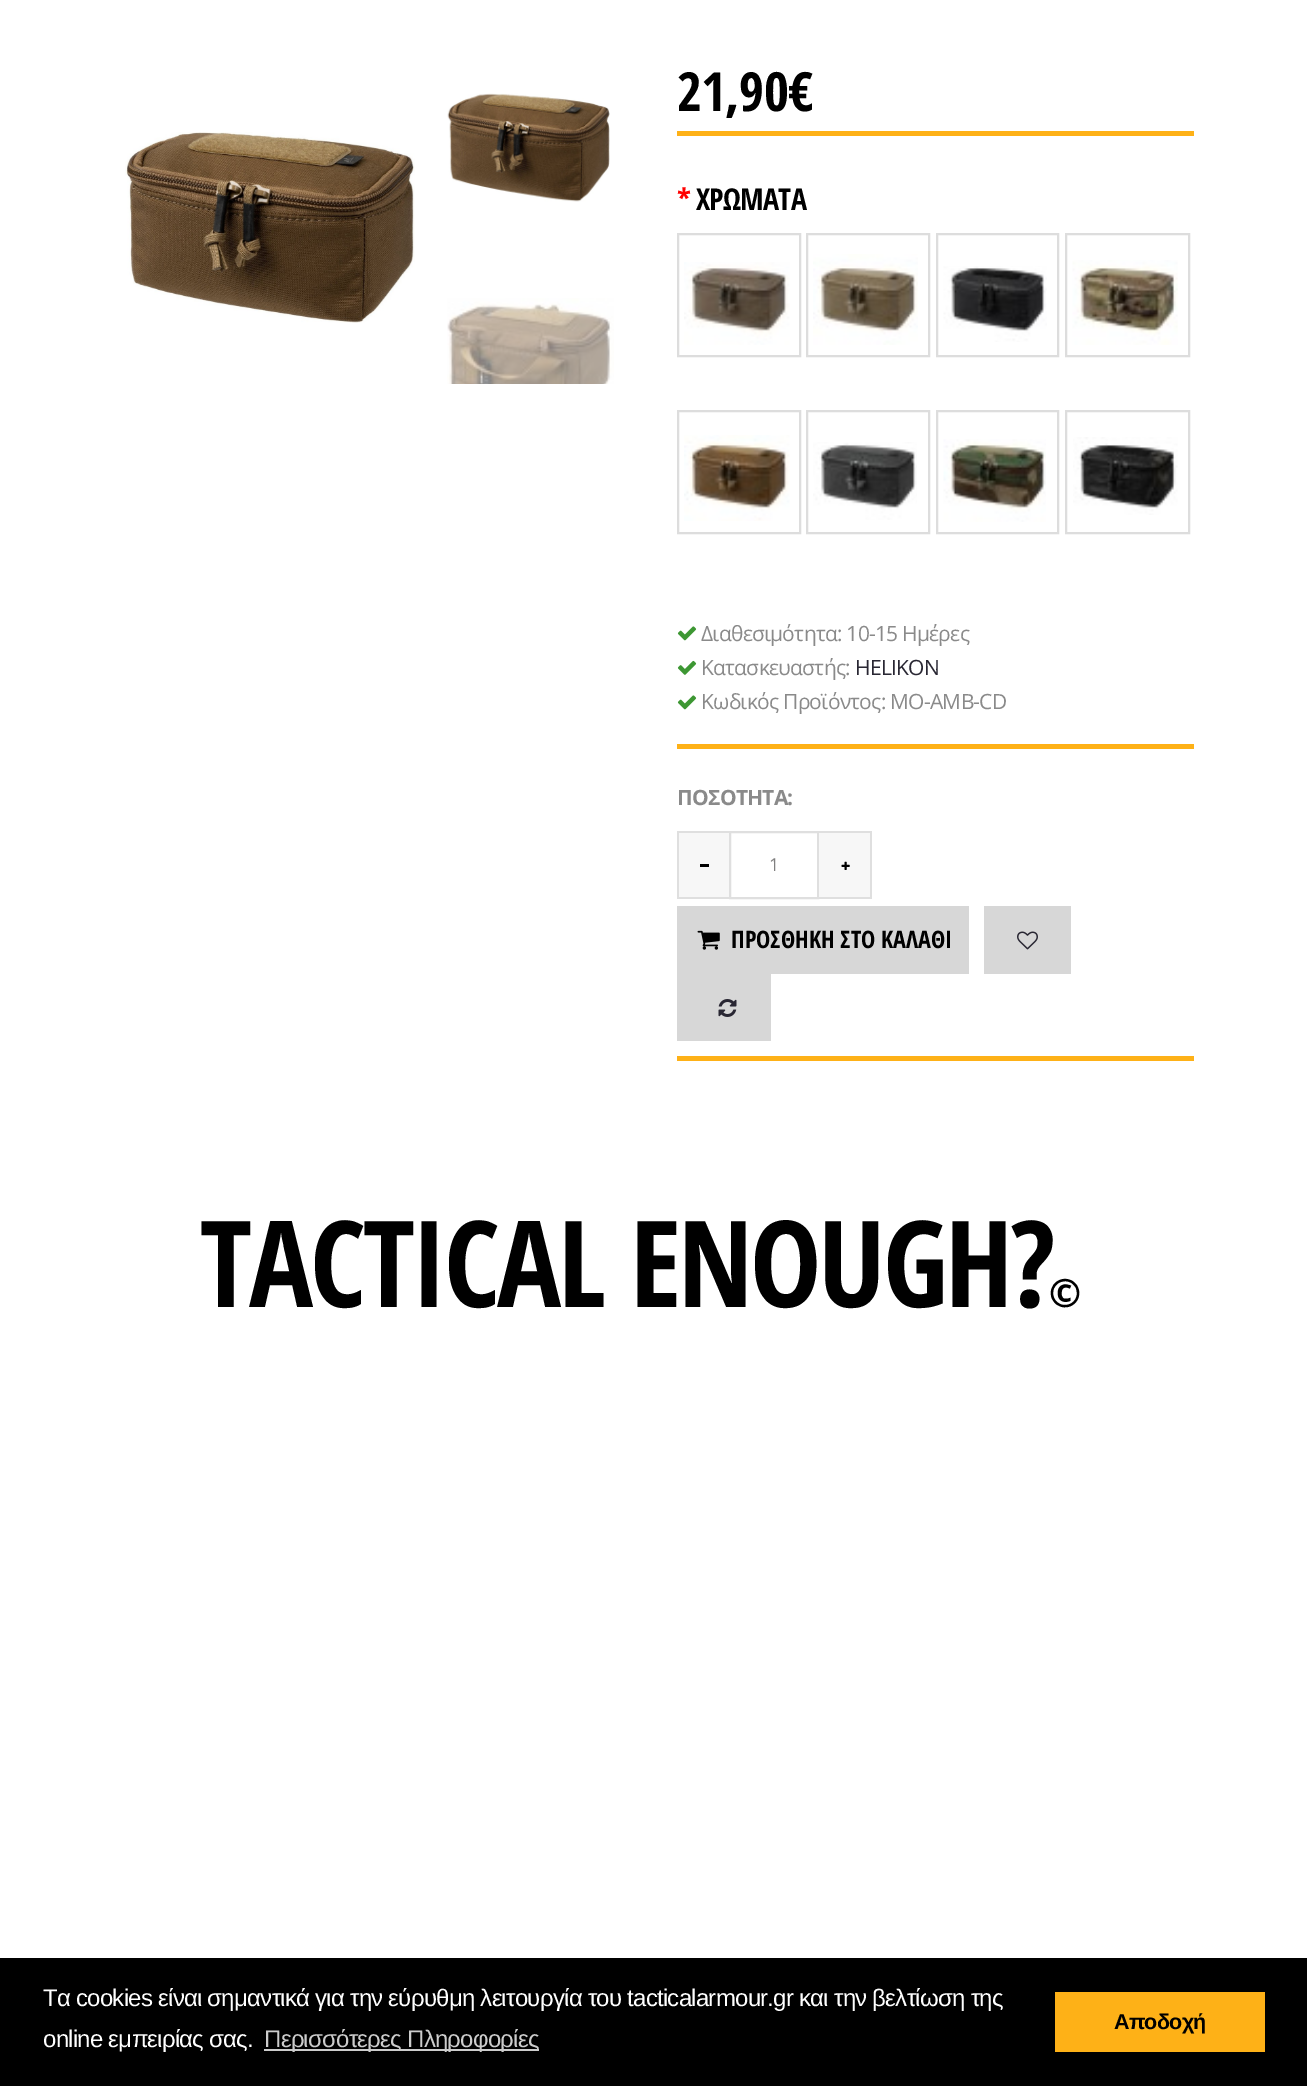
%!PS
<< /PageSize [1307 2086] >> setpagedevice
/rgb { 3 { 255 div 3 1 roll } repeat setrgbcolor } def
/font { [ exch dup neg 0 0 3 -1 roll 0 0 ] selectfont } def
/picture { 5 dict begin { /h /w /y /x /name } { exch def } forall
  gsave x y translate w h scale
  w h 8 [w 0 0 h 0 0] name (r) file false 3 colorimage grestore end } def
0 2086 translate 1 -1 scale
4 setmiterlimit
255 255 255 rgb
0 0 1307 2086 rectfill
(img/1.rgb) 125 132 290 191 picture
(img/2.rgb) 447 93 163 109 picture
(img/3.rgb) 447 298 167 86 picture
254 177 23 rgb
677 131 517 5 rectfill
221 221 221 rgb
2 setlinewidth
678 234 122 122 rectstroke
(img/4.rgb) 684 262 106 83 picture
807 234 122 122 rectstroke
(img/5.rgb) 813 254 105 91 picture
937 234 121 122 rectstroke
(img/6.rgb) 943 266 104 76 picture
1066 234 123 122 rectstroke
(img/7.rgb) 1072 260 106 85 picture
678 411 122 122 rectstroke
(img/8.rgb) 684 435 106 86 picture
807 411 122 122 rectstroke
(img/9.rgb) 813 442 104 78 picture
937 411 121 122 rectstroke
(img/10.rgb) 943 439 103 83 picture
1066 411 123 122 rectstroke
(img/11.rgb) 1073 437 105 78 picture
(img/12.rgb) 677 626 20 15 picture
(img/13.rgb) 677 660 20 15 picture
(img/12.rgb) 677 695 20 15 picture
[
  [677 744 517 5 254 177 23]
  [677 1056 517 5 254 177 23]
  [679 833 50 64 247 247 247]
  [677 831 52 2 223 223 223]
  [677 897 52 2 223 223 223]
  [677 831 2 68 223 223 223]
  [700 864 9 3 0 0 0]
] { aload pop rgb rectfill } forall
223 223 223 rgb
730 832 88 66 rectstroke
[
  [819 833 51 64 247 247 247]
  [819 831 53 2 223 223 223]
  [870 831 2 68 223 223 223]
  [819 897 53 2 223 223 223]
] { aload pop rgb rectfill } forall
(img/14.rgb) 841 861 9 9 picture
215 215 215 rgb
677 906 292 68 rectfill
(img/15.rgb) 697 930 23 20 picture
984 906 87 68 rectfill
(img/16.rgb) 1017 931 21 19 picture
677 974 94 67 rectfill
(img/17.rgb) 718 999 19 18 picture
[
  [0 1958 1307 128 0 0 0]
  [264 2049 275 2 204 204 204]
  [1055 1992 210 60 254 177 23]
] { aload pop rgb rectfill } forall
/OpenSansCondensed-Bold 54 font
0 0 0 rgb
677 111 moveto -0.75 0 (21,90€) ashow
/OpenSansCondensed-Bold 30 font
255 0 0 rgb
677 210 moveto -0.75 0 (*) ashow
0 0 0 rgb
696 210 moveto -0.75 0 (ΧΡΩΜΑΤΑ) ashow
/OpenSans-Regular 21 font
138 138 138 rgb
701 641 moveto -0.75 0 (Διαθεσιμότητα: 10-15 Ημέρες) ashow
701 675 moveto -0.75 0 (Κατασκευαστής:) ashow
41 39 51 rgb
855 675 moveto -0.75 0 (HELIKON) ashow
138 138 138 rgb
701 709 moveto -0.75 0 (Κωδικός Προϊόντος: MO-AMB-CD) ashow
/OpenSans-Bold 21 font
677 805 moveto -0.75 0 (ΠΟΣΟΤΗΤΑ:) ashow
/OpenSans-Regular 18 font
128 127 127 rgb
769 871 moveto (1) show
/OpenSansCondensed-Bold 24 font
0 0 0 rgb
731 948 moveto (ΠΡΟΣΘΗΚΗ ΣΤΟ ΚΑΛΑΘΙ) show
/OpenSansCondensed-Bold 120 font
200 1307 moveto -3 0 (TACTICAL ENOUGH?) ashow
/OpenSansCondensed-Bold 39 font
1049 1307 moveto -3 0 (©) ashow
/LiberationSans-Regular 24 font
255 255 255 rgb
43 2006 moveto -0.75 0 (Τα cookies είναι σημαντικά για την εύρυθμη λειτουργία του tacticalarmour.gr και την βελτίωση της) ashow
43 2047 moveto -0.75 0 (online εμπειρίας σας.) ashow
204 204 204 rgb
264 2047 moveto -0.75 0 (Περισσότερες Πληροφορίες) ashow
/LiberationSans-Bold 21.5 font
0 0 0 rgb
1114 2029 moveto -0.75 0 (Αποδοχή) ashow
showpage
